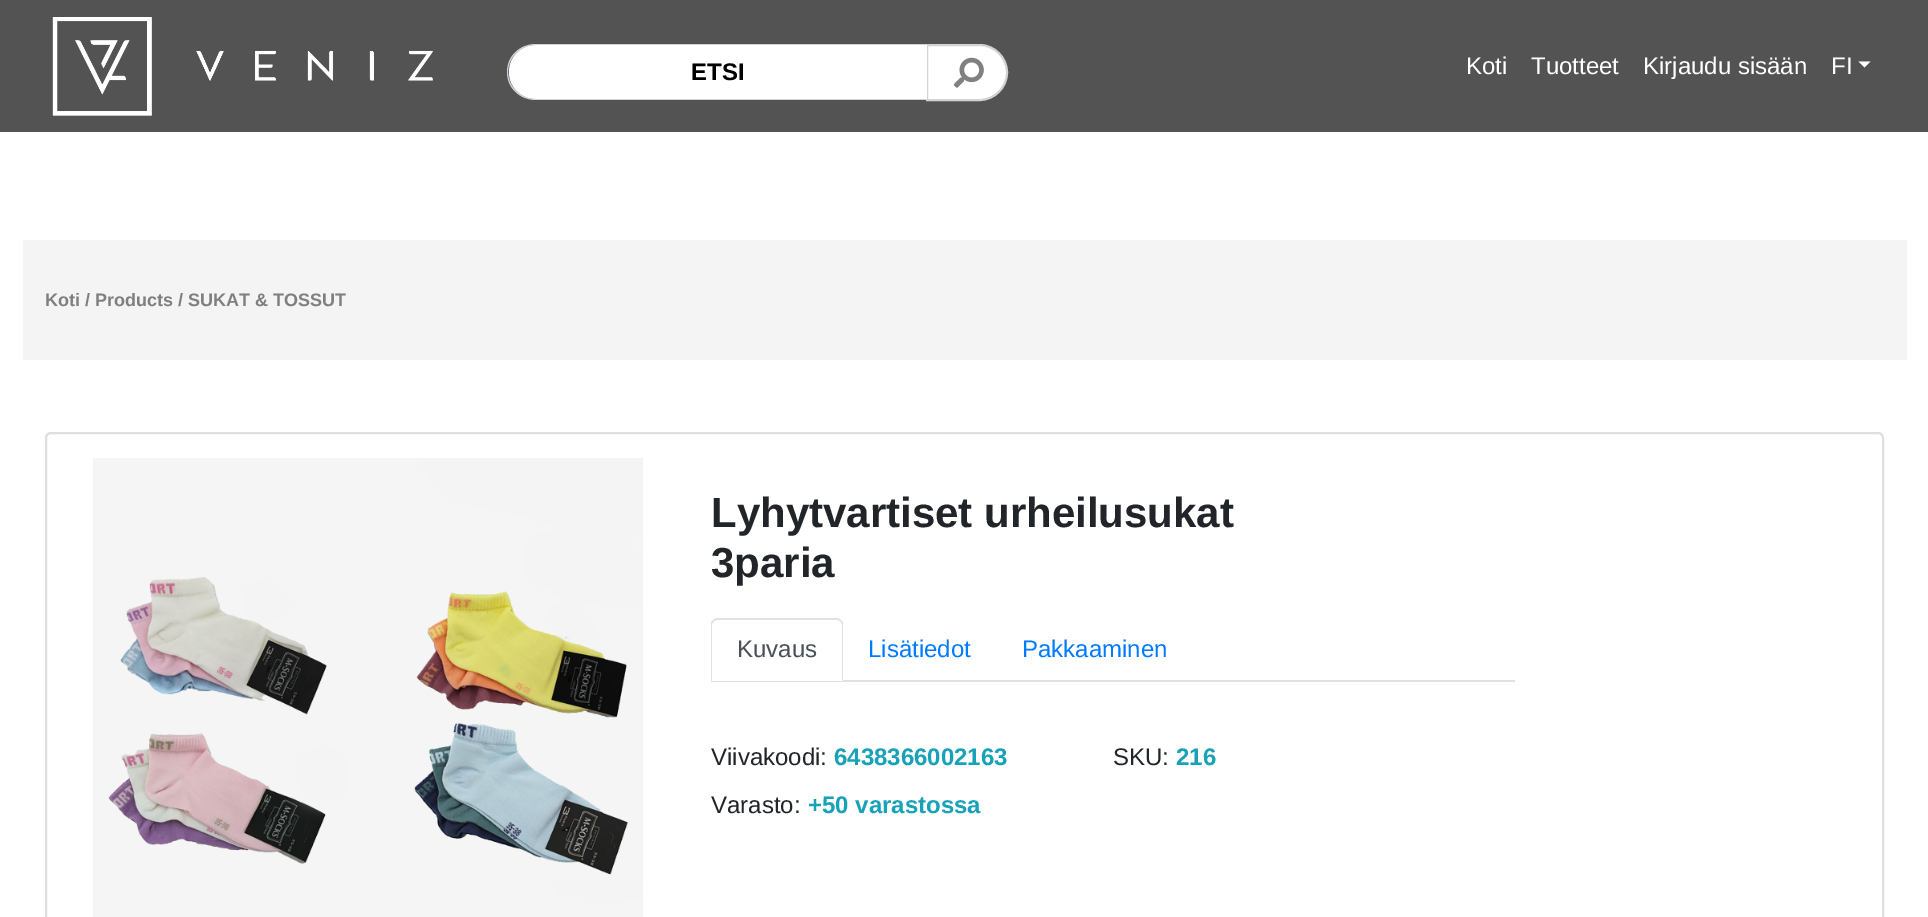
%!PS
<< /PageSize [1928 917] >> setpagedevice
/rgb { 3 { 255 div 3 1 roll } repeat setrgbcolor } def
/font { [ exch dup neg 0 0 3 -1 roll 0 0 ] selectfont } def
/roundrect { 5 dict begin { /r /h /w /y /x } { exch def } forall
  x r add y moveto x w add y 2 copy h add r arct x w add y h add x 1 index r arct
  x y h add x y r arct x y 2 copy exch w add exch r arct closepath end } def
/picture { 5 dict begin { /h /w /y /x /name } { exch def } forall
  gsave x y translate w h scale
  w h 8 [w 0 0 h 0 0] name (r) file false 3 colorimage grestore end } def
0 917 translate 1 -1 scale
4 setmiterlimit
255 255 255 rgb
0 0 1928 917 rectfill
83 83 83 rgb
0 0 1928 132 rectfill
(img/1.rgb) 52 17 381 99 picture
255 255 255 rgb
927 45 moveto 979.5 45 lineto 994.5 45 1007 57.5 1007 72.5 curveto 1007 87.5 994.5 100 979.5 100 curveto 927 100 lineto closepath gsave fill grestore
211 211 211 rgb
2 setlinewidth
stroke
255 255 255 rgb
536 45 moveto 927 45 lineto 927 99 lineto 536 99 lineto 521 99 509 87 509 72 curveto 509 57 521 45 536 45 curveto closepath fill
206 212 218 rgb
536 44 moveto 927 44 lineto 927 100 lineto 536 100 lineto 520 100 507 88 507 72 curveto 507 56 520 44 536 44 curveto closepath 536 45 moveto 927 45 lineto 927 99 lineto 536 99 lineto 521 99 508 87 508 72 curveto 508 57 521 45 536 45 curveto closepath eofill
(img/2.rgb) 953 57 31 31 picture
255 255 255 rgb
1858.5 61.5 moveto 1870.5 61.5 lineto 1864.5 67.5 lineto closepath fill
244 244 244 rgb
23 240 1884 120 rectfill
223 223 223 rgb
46 433 1837 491 5 roundrect stroke
(img/3.rgb) 93 458 550 459 picture
222 226 230 rgb
711 680 804 2 rectfill
255 255 255 rgb
717 618 moveto 837 618 lineto 840.5 618 843 620.5 843 624 curveto 843 681 lineto 711 681 lineto 711 624 lineto 711 620.5 713.5 618 717 618 curveto closepath fill
222 226 230 rgb
717 618 moveto 716 618 714 619 713 620 curveto 714 621 lineto 717 620 lineto 757 620 lineto 837 620 lineto 840 621 lineto 841 620 lineto 840 619 838 618 837 618 curveto closepath fill
843 681 moveto 843 624 lineto 843 622 842 621 841 620 curveto 840 621 lineto 842 624 lineto 842 680 lineto closepath fill
255 255 255 rgb
843 681 moveto 842 680 lineto 712 680 lineto 711 681 lineto closepath fill
222 226 230 rgb
711 681 moveto 712 680 lineto 712 624 lineto 714 621 lineto 713 620 lineto 712 621 711 622 711 624 curveto closepath fill
/LiberationSans-Bold 24 font
0 0 0 rgb
691 80 moveto (ETSI) show
/LiberationSans-Regular 24 font
255 255 255 rgb
[
  [(Koti) 1466 74]
  [(Tuotteet) 1531 74]
  [(Kirjaudu sisään) 1643 74]
  [(FI) 1831 74]
] { aload pop moveto show } forall
/LiberationSans-Bold 18 font
127 127 127 rgb
45 306 moveto (Koti / Products / SUKAT & TOSSUT) show
/LiberationSans-Bold 42 font
33 37 41 rgb
711 527 moveto (Lyhytvartiset urheilusukat) show
711 577 moveto (3paria) show
/LiberationSans-Regular 24 font
73 80 87 rgb
737 657 moveto (Kuvaus) show
0 123 255 rgb
868 657 moveto (Lisätiedot) show
1022 657 moveto (Pakkaaminen) show
33 37 41 rgb
711 765 moveto (Viivakoodi:) show
/LiberationSans-Bold 24 font
23 162 184 rgb
834 765 moveto (6438366002163) show
/LiberationSans-Regular 24 font
33 37 41 rgb
1113 765 moveto (SKU:) show
/LiberationSans-Bold 24 font
23 162 184 rgb
1176 765 moveto (216) show
/LiberationSans-Regular 24 font
33 37 41 rgb
711 813 moveto (Varasto:) show
/LiberationSans-Bold 24 font
23 162 184 rgb
808 813 moveto (+50 varastossa) show
showpage
